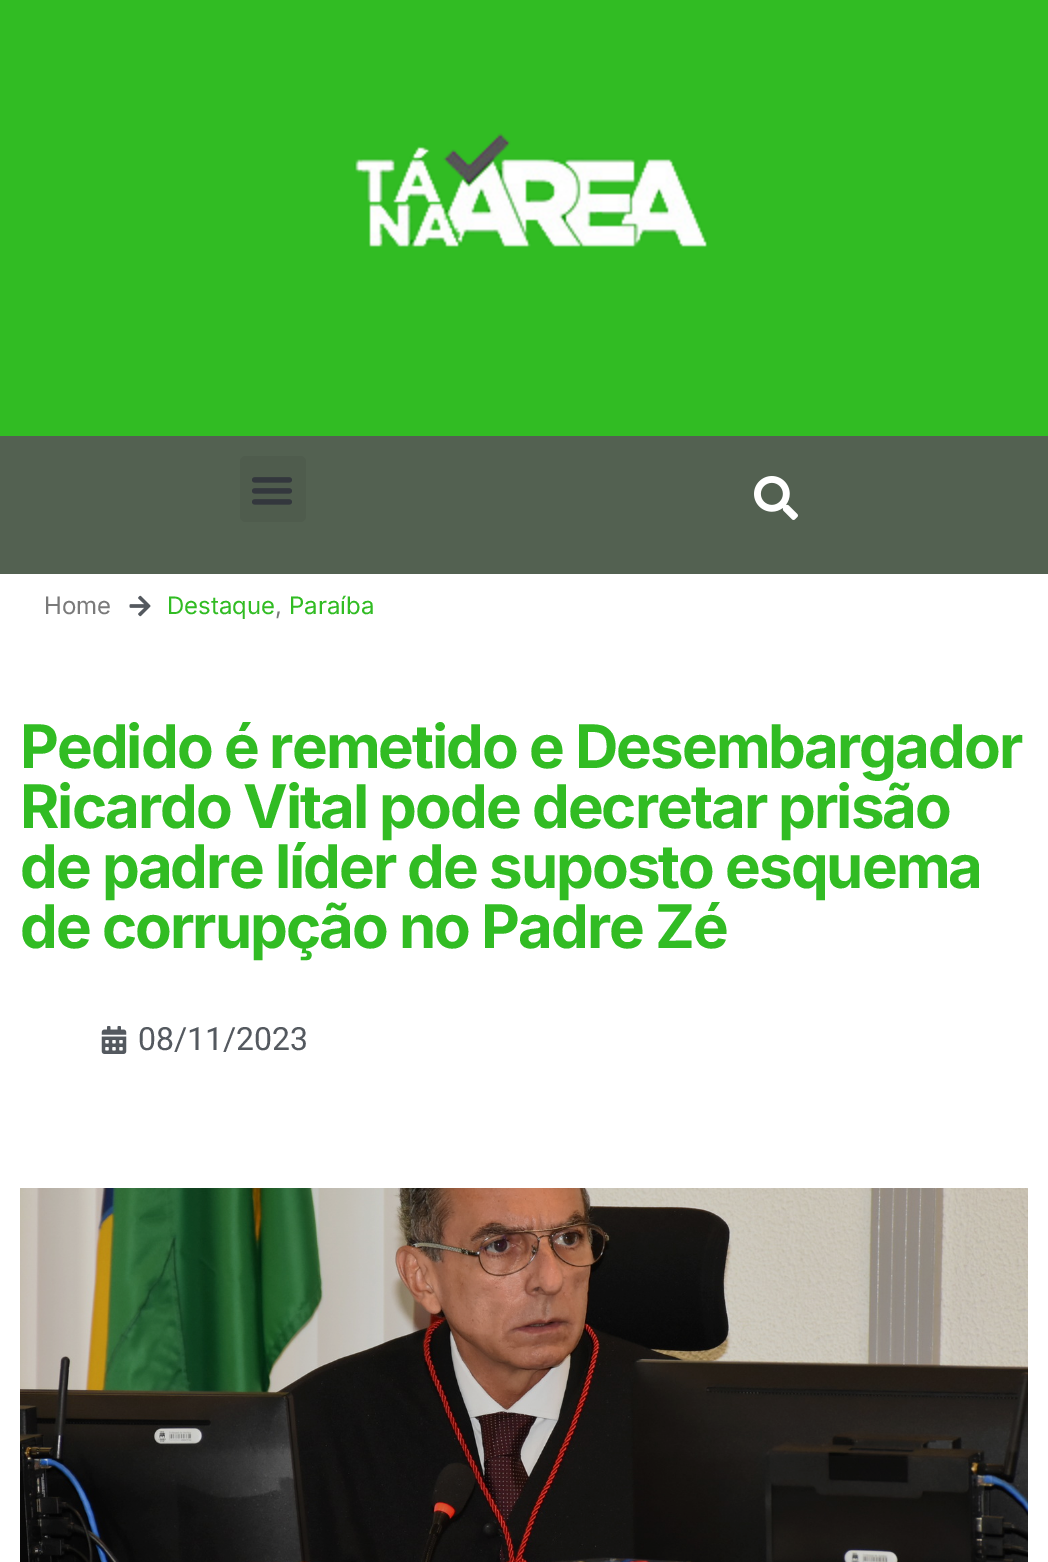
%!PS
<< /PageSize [1048 1562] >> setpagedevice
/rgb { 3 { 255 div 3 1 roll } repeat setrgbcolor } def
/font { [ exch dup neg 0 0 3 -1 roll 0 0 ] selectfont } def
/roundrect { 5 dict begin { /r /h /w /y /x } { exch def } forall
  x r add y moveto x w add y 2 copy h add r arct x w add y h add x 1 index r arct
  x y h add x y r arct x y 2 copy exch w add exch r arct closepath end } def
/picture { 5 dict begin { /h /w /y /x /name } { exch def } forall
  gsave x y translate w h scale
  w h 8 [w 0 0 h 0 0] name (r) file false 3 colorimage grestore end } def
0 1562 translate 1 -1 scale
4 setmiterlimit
255 255 255 rgb
0 0 1048 1562 rectfill
49 188 35 rgb
0 0 1048 436 rectfill
(img/1.rgb) 354 133 354 114 picture
83 97 81 rgb
0 436 1048 138 rectfill
79 92 77 rgb
240 456 66 66 6 roundrect fill
(img/2.rgb) 252 477 40 28 picture
(img/3.rgb) 754 476 44 44 picture
(img/4.rgb) 129 595 22 22 picture
(img/5.rgb) 101 1026 26 28 picture
(img/6.rgb) 20 1188 1008 374 picture
/Inter-Regular 24 font
122 122 122 rgb
44 614 moveto (Home) show
49 188 35 rgb
167 614 moveto (Destaque) show
122 122 122 rgb
275 614 moveto (,) show
49 188 35 rgb
289 614 moveto (Paraíba) show
/Inter-Bold 60 font
20 768 moveto -2 0 (Pedido é remetido e Desembargador) ashow
20 828 moveto -2 0 (Ricardo Vital pode decretar prisão) ashow
20 888 moveto -2 0 (de padre líder de suposto esquema) ashow
20 948 moveto -2 0 (de corrupção no Padre Zé) ashow
/Roboto-Regular 32 font
84 89 95 rgb
138 1050 moveto (08/11/2023) show
showpage
